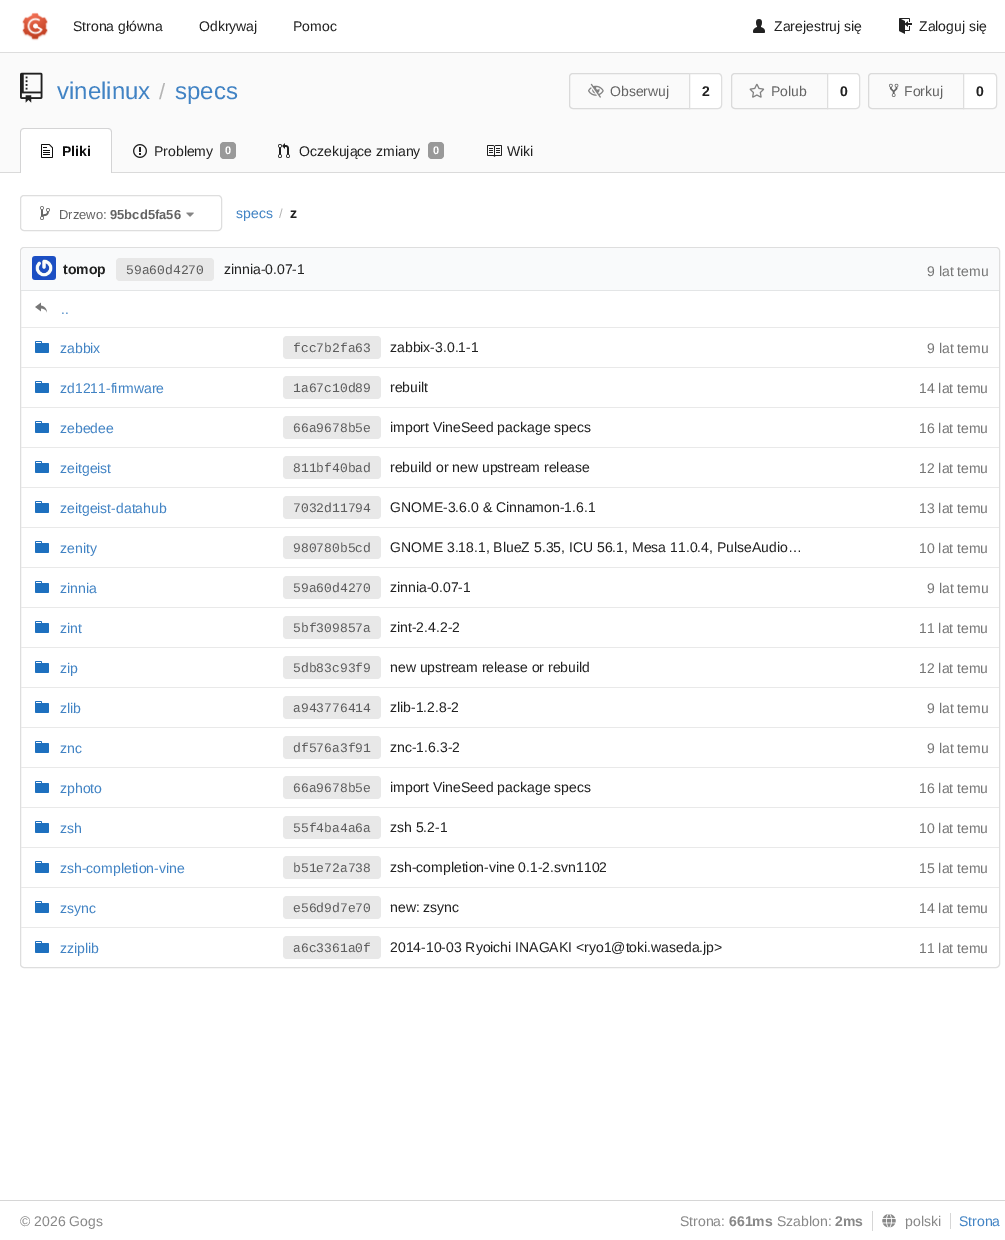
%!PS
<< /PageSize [1005 1240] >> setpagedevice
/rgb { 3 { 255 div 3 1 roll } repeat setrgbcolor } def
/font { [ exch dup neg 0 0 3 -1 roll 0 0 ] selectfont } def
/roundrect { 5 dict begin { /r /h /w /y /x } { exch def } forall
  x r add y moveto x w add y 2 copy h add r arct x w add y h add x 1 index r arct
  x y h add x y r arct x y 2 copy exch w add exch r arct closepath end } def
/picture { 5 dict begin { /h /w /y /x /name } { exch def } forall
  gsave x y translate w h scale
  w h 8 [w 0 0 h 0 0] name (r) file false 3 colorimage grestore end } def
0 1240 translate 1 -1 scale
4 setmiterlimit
255 255 255 rgb
0 0 1005 1240 rectfill
221 221 221 rgb
0 52 1005 1 rectfill
(img/1.rgb) 22 12 26 29 picture
(img/2.rgb) 753 19 12 14 picture
(img/3.rgb) 899 18 13 16 picture
250 250 250 rgb
0 53 1005 119 rectfill
(img/4.rgb) 20 72 23 31 picture
218 218 218 rgb
573 73.5 moveto 689.5 73.5 lineto 689.5 108.5 lineto 573 108.5 lineto 571 108.5 569.5 107 569.5 105 curveto 569.5 77 lineto 569.5 75 571 73.5 573 73.5 curveto closepath stroke
(img/5.rgb) 588 83 16 15 picture
255 255 255 rgb
689.5 73.5 moveto 718 73.5 lineto 720 73.5 721.5 75 721.5 77 curveto 721.5 105 lineto 721.5 107 720 108.5 718 108.5 curveto 689.5 108.5 lineto closepath gsave fill grestore
222 222 222 rgb
stroke
218 218 218 rgb
735 73.5 moveto 827.5 73.5 lineto 827.5 108.5 lineto 735 108.5 lineto 733 108.5 731.5 107 731.5 105 curveto 731.5 77 lineto 731.5 75 733 73.5 735 73.5 curveto closepath stroke
(img/6.rgb) 749 83 16 15 picture
255 255 255 rgb
827.5 73.5 moveto 856 73.5 lineto 858 73.5 859.5 75 859.5 77 curveto 859.5 105 lineto 859.5 107 858 108.5 856 108.5 curveto 827.5 108.5 lineto closepath gsave fill grestore
222 222 222 rgb
stroke
218 218 218 rgb
872 73.5 moveto 963.5 73.5 lineto 963.5 108.5 lineto 872 108.5 lineto 870 108.5 868.5 107 868.5 105 curveto 868.5 77 lineto 868.5 75 870 73.5 872 73.5 curveto closepath stroke
(img/7.rgb) 889 83 10 14 picture
255 255 255 rgb
963.5 73.5 moveto 993 73.5 lineto 995 73.5 996.5 75 996.5 77 curveto 996.5 105 lineto 996.5 107 995 108.5 993 108.5 curveto 963.5 108.5 lineto closepath gsave fill grestore
222 222 222 rgb
stroke
218 218 218 rgb
0 172 1005 1 rectfill
255 255 255 rgb
24 128 moveto 108 128 lineto 110 128 112 130 112 132 curveto 112 173 lineto 20 173 lineto 20 132 lineto 20 130 22 128 24 128 curveto closepath fill
212 212 213 rgb
24 128 moveto 108 128 lineto 110 128 112 130 112 132 curveto 112 173 lineto 20 173 lineto 20 132 lineto 20 130 22 128 24 128 curveto closepath 24 129 moveto 108 129 lineto 110 129 111 130 111 132 curveto 111 173 lineto 21 173 lineto 21 132 lineto 21 130 22 129 24 129 curveto closepath eofill
(img/8.rgb) 41 144 12 14 picture
(img/9.rgb) 133 144 14 14 picture
153 153 153 rgb
220 142 16 17 4 roundrect fill
(img/10.rgb) 278 143 12 15 picture
428 142 16 17 4 roundrect fill
(img/11.rgb) 487 145 15 12 picture
222 222 222 rgb
20.5 195.5 201 35 3.5 roundrect stroke
(img/12.rgb) 40 206 10 14 picture
(img/13.rgb) 186 212 8 5 picture
20.5 247.5 979 720 3.5 roundrect stroke
249 250 251 rgb
25 248 moveto 816 248 lineto 816 291 lineto 21 291 lineto 21 252 lineto 21 250 23 248 25 248 curveto closepath fill
227 229 230 rgb
21 290 795 1 rectfill
(img/14.rgb) 32 256 24 24 picture
232 232 232 rgb
116 258 98 23 4 roundrect fill
249 250 251 rgb
816 248 moveto 995 248 lineto 997 248 999 250 999 252 curveto 999 291 lineto 816 291 lineto closepath fill
227 229 230 rgb
816 290 183 1 rectfill
(img/15.rgb) 35 302 12 11 picture
233 233 233 rgb
21 327 978 1 rectfill
(img/16.rgb) 35 341 14 12 picture
232 232 232 rgb
283 336 98 23 4 roundrect fill
233 233 233 rgb
21 367 978 1 rectfill
(img/16.rgb) 35 381 14 12 picture
232 232 232 rgb
283 376 98 23 4 roundrect fill
233 233 233 rgb
21 407 978 1 rectfill
(img/16.rgb) 35 421 14 12 picture
232 232 232 rgb
283 416 98 23 4 roundrect fill
233 233 233 rgb
21 447 978 1 rectfill
(img/16.rgb) 35 461 14 12 picture
232 232 232 rgb
283 456 98 23 4 roundrect fill
233 233 233 rgb
21 487 978 1 rectfill
(img/16.rgb) 35 501 14 12 picture
232 232 232 rgb
283 496 98 23 4 roundrect fill
233 233 233 rgb
21 527 978 1 rectfill
(img/16.rgb) 35 541 14 12 picture
232 232 232 rgb
283 536 98 23 4 roundrect fill
233 233 233 rgb
21 567 978 1 rectfill
(img/16.rgb) 35 581 14 12 picture
232 232 232 rgb
283 576 98 23 4 roundrect fill
233 233 233 rgb
21 607 978 1 rectfill
(img/16.rgb) 35 621 14 12 picture
232 232 232 rgb
283 616 98 23 4 roundrect fill
233 233 233 rgb
21 647 978 1 rectfill
(img/16.rgb) 35 661 14 12 picture
232 232 232 rgb
283 656 98 23 4 roundrect fill
233 233 233 rgb
21 687 978 1 rectfill
(img/16.rgb) 35 701 14 12 picture
232 232 232 rgb
283 696 98 23 4 roundrect fill
233 233 233 rgb
21 727 978 1 rectfill
(img/16.rgb) 35 741 14 12 picture
232 232 232 rgb
283 736 98 23 4 roundrect fill
233 233 233 rgb
21 767 978 1 rectfill
(img/16.rgb) 35 781 14 12 picture
232 232 232 rgb
283 776 98 23 4 roundrect fill
233 233 233 rgb
21 807 978 1 rectfill
(img/16.rgb) 35 821 14 12 picture
232 232 232 rgb
283 816 98 23 4 roundrect fill
233 233 233 rgb
21 847 978 1 rectfill
(img/16.rgb) 35 861 14 12 picture
232 232 232 rgb
283 856 98 23 4 roundrect fill
233 233 233 rgb
21 887 978 1 rectfill
(img/16.rgb) 35 901 14 12 picture
232 232 232 rgb
283 896 98 23 4 roundrect fill
233 233 233 rgb
21 927 978 1 rectfill
(img/16.rgb) 35 941 14 12 picture
232 232 232 rgb
283 936 98 23 4 roundrect fill
214 214 214 rgb
0 1200 1005 1 rectfill
872 1211 1 20 rectfill
(img/17.rgb) 882 1214 14 14 picture
950 1213 1 16 rectfill
/LiberationSans-Regular 14 font
33 33 33 rgb
[
  [(Strona główna) 73 31]
  [(Odkrywaj) 199 31]
  [(Pomoc) 293 31]
  [(Zarejestruj się) 774 31]
  [(Zaloguj się) 919 31]
] { aload pop moveto show } forall
/LiberationSans-Regular 24 font
65 131 196 rgb
57 99 moveto (vinelinux) show
/LiberationSans-Regular 22 font
180 180 180 rgb
159 99 moveto (/) show
/LiberationSans-Regular 24 font
65 131 196 rgb
175 99 moveto (specs) show
/LiberationSans-Regular 14 font
100 100 100 rgb
610 96 moveto (Obserwuj) show
/LiberationSans-Bold 14 font
33 33 33 rgb
702 96 moveto (2) show
/LiberationSans-Regular 14 font
100 100 100 rgb
771 96 moveto (Polub) show
/LiberationSans-Bold 14 font
33 33 33 rgb
840 96 moveto (0) show
/LiberationSans-Regular 14 font
100 100 100 rgb
904 96 moveto (Forkuj) show
/LiberationSans-Bold 14 font
33 33 33 rgb
976 96 moveto (0) show
13 13 13 rgb
62 156 moveto (Pliki) show
/LiberationSans-Regular 14 font
33 33 33 rgb
154 156 moveto (Problemy) show
/LiberationSans-Bold 11 font
255 255 255 rgb
225 154 moveto (0) show
/LiberationSans-Regular 14 font
33 33 33 rgb
299 156 moveto (Oczekujące zmiany) show
/LiberationSans-Bold 11 font
255 255 255 rgb
433 154 moveto (0) show
/LiberationSans-Regular 14 font
33 33 33 rgb
507 156 moveto (Wiki) show
/LiberationSans-Regular 13 font
100 100 100 rgb
59 219 moveto (Drzewo:) show
/LiberationSans-Bold 13 font
110 219 moveto (95bcd5fa56) show
/LiberationSans-Regular 14 font
65 131 196 rgb
236 218 moveto (specs) show
/LiberationSans-Regular 13 font
180 180 180 rgb
279 218 moveto (/) show
/LiberationSans-Bold 14 font
33 33 33 rgb
290 218 moveto (z) show
63 274 moveto (tomop) show
/LiberationMono-Regular 13 font
93 93 93 rgb
126 274 moveto (59a60d4270) show
/LiberationSans-Regular 14 font
33 33 33 rgb
224 274 moveto (zinnia-0.07-1) show
118 118 118 rgb
927 276 moveto (9 lat temu) show
65 131 196 rgb
61 314 moveto (..) show
60 353 moveto (zabbix) show
/LiberationMono-Regular 13 font
93 93 93 rgb
293 352 moveto (fcc7b2fa63) show
/LiberationSans-Regular 14 font
33 33 33 rgb
390 352 moveto (zabbix-3.0.1-1) show
118 118 118 rgb
927 353 moveto (9 lat temu) show
65 131 196 rgb
60 393 moveto (zd1211-firmware) show
/LiberationMono-Regular 13 font
93 93 93 rgb
293 392 moveto (1a67c10d89) show
/LiberationSans-Regular 14 font
33 33 33 rgb
390 392 moveto (rebuilt) show
118 118 118 rgb
919 393 moveto (14 lat temu) show
65 131 196 rgb
60 433 moveto (zebedee) show
/LiberationMono-Regular 13 font
93 93 93 rgb
293 432 moveto (66a9678b5e) show
/LiberationSans-Regular 14 font
33 33 33 rgb
390 432 moveto (import VineSeed package specs) show
118 118 118 rgb
919 433 moveto (16 lat temu) show
65 131 196 rgb
60 473 moveto (zeitgeist) show
/LiberationMono-Regular 13 font
93 93 93 rgb
293 472 moveto (811bf40bad) show
/LiberationSans-Regular 14 font
33 33 33 rgb
390 472 moveto (rebuild or new upstream release) show
118 118 118 rgb
919 473 moveto (12 lat temu) show
65 131 196 rgb
60 513 moveto (zeitgeist-datahub) show
/LiberationMono-Regular 13 font
93 93 93 rgb
293 512 moveto (7032d11794) show
/LiberationSans-Regular 14 font
33 33 33 rgb
390 512 moveto (GNOME-3.6.0 & Cinnamon-1.6.1) show
118 118 118 rgb
919 513 moveto (13 lat temu) show
65 131 196 rgb
60 553 moveto (zenity) show
/LiberationMono-Regular 13 font
93 93 93 rgb
293 552 moveto (980780b5cd) show
/LiberationSans-Regular 14 font
33 33 33 rgb
390 552 moveto (GNOME 3.18.1, BlueZ 5.35, ICU 56.1, Mesa 11.0.4, PulseAudio…) show
118 118 118 rgb
919 553 moveto (10 lat temu) show
65 131 196 rgb
60 593 moveto (zinnia) show
/LiberationMono-Regular 13 font
93 93 93 rgb
293 592 moveto (59a60d4270) show
/LiberationSans-Regular 14 font
33 33 33 rgb
390 592 moveto (zinnia-0.07-1) show
118 118 118 rgb
927 593 moveto (9 lat temu) show
65 131 196 rgb
60 633 moveto (zint) show
/LiberationMono-Regular 13 font
93 93 93 rgb
293 632 moveto (5bf309857a) show
/LiberationSans-Regular 14 font
33 33 33 rgb
390 632 moveto (zint-2.4.2-2) show
118 118 118 rgb
919 633 moveto (11 lat temu) show
65 131 196 rgb
60 673 moveto (zip) show
/LiberationMono-Regular 13 font
93 93 93 rgb
293 672 moveto (5db83c93f9) show
/LiberationSans-Regular 14 font
33 33 33 rgb
390 672 moveto (new upstream release or rebuild) show
118 118 118 rgb
919 673 moveto (12 lat temu) show
65 131 196 rgb
60 713 moveto (zlib) show
/LiberationMono-Regular 13 font
93 93 93 rgb
293 712 moveto (a943776414) show
/LiberationSans-Regular 14 font
33 33 33 rgb
390 712 moveto (zlib-1.2.8-2) show
118 118 118 rgb
927 713 moveto (9 lat temu) show
65 131 196 rgb
60 753 moveto (znc) show
/LiberationMono-Regular 13 font
93 93 93 rgb
293 752 moveto (df576a3f91) show
/LiberationSans-Regular 14 font
33 33 33 rgb
390 752 moveto (znc-1.6.3-2) show
118 118 118 rgb
927 753 moveto (9 lat temu) show
65 131 196 rgb
60 793 moveto (zphoto) show
/LiberationMono-Regular 13 font
93 93 93 rgb
293 792 moveto (66a9678b5e) show
/LiberationSans-Regular 14 font
33 33 33 rgb
390 792 moveto (import VineSeed package specs) show
118 118 118 rgb
919 793 moveto (16 lat temu) show
65 131 196 rgb
60 833 moveto (zsh) show
/LiberationMono-Regular 13 font
93 93 93 rgb
293 832 moveto (55f4ba4a6a) show
/LiberationSans-Regular 14 font
33 33 33 rgb
390 832 moveto (zsh 5.2-1) show
118 118 118 rgb
919 833 moveto (10 lat temu) show
65 131 196 rgb
60 873 moveto (zsh-completion-vine) show
/LiberationMono-Regular 13 font
93 93 93 rgb
293 872 moveto (b51e72a738) show
/LiberationSans-Regular 14 font
33 33 33 rgb
390 872 moveto (zsh-completion-vine 0.1-2.svn1102) show
118 118 118 rgb
919 873 moveto (15 lat temu) show
65 131 196 rgb
60 913 moveto (zsync) show
/LiberationMono-Regular 13 font
93 93 93 rgb
293 912 moveto (e56d9d7e70) show
/LiberationSans-Regular 14 font
33 33 33 rgb
390 912 moveto (new: zsync) show
118 118 118 rgb
919 913 moveto (14 lat temu) show
65 131 196 rgb
60 953 moveto (zziplib) show
/LiberationMono-Regular 13 font
93 93 93 rgb
293 952 moveto (a6c3361a0f) show
/LiberationSans-Regular 14 font
33 33 33 rgb
390 952 moveto (2014-10-03 Ryoichi INAGAKI <ryo1@toki.waseda.jp>) show
118 118 118 rgb
919 953 moveto (11 lat temu) show
136 136 136 rgb
20 1226 moveto (© 2026 Gogs) show
680 1226 moveto (Strona:) show
/LiberationSans-Bold 14 font
729 1226 moveto (661ms) show
/LiberationSans-Regular 14 font
777 1226 moveto (Szablon:) show
/LiberationSans-Bold 14 font
835 1226 moveto (2ms) show
/LiberationSans-Regular 14 font
905 1226 moveto (polski) show
65 131 196 rgb
959 1226 moveto (Strona) show
showpage
